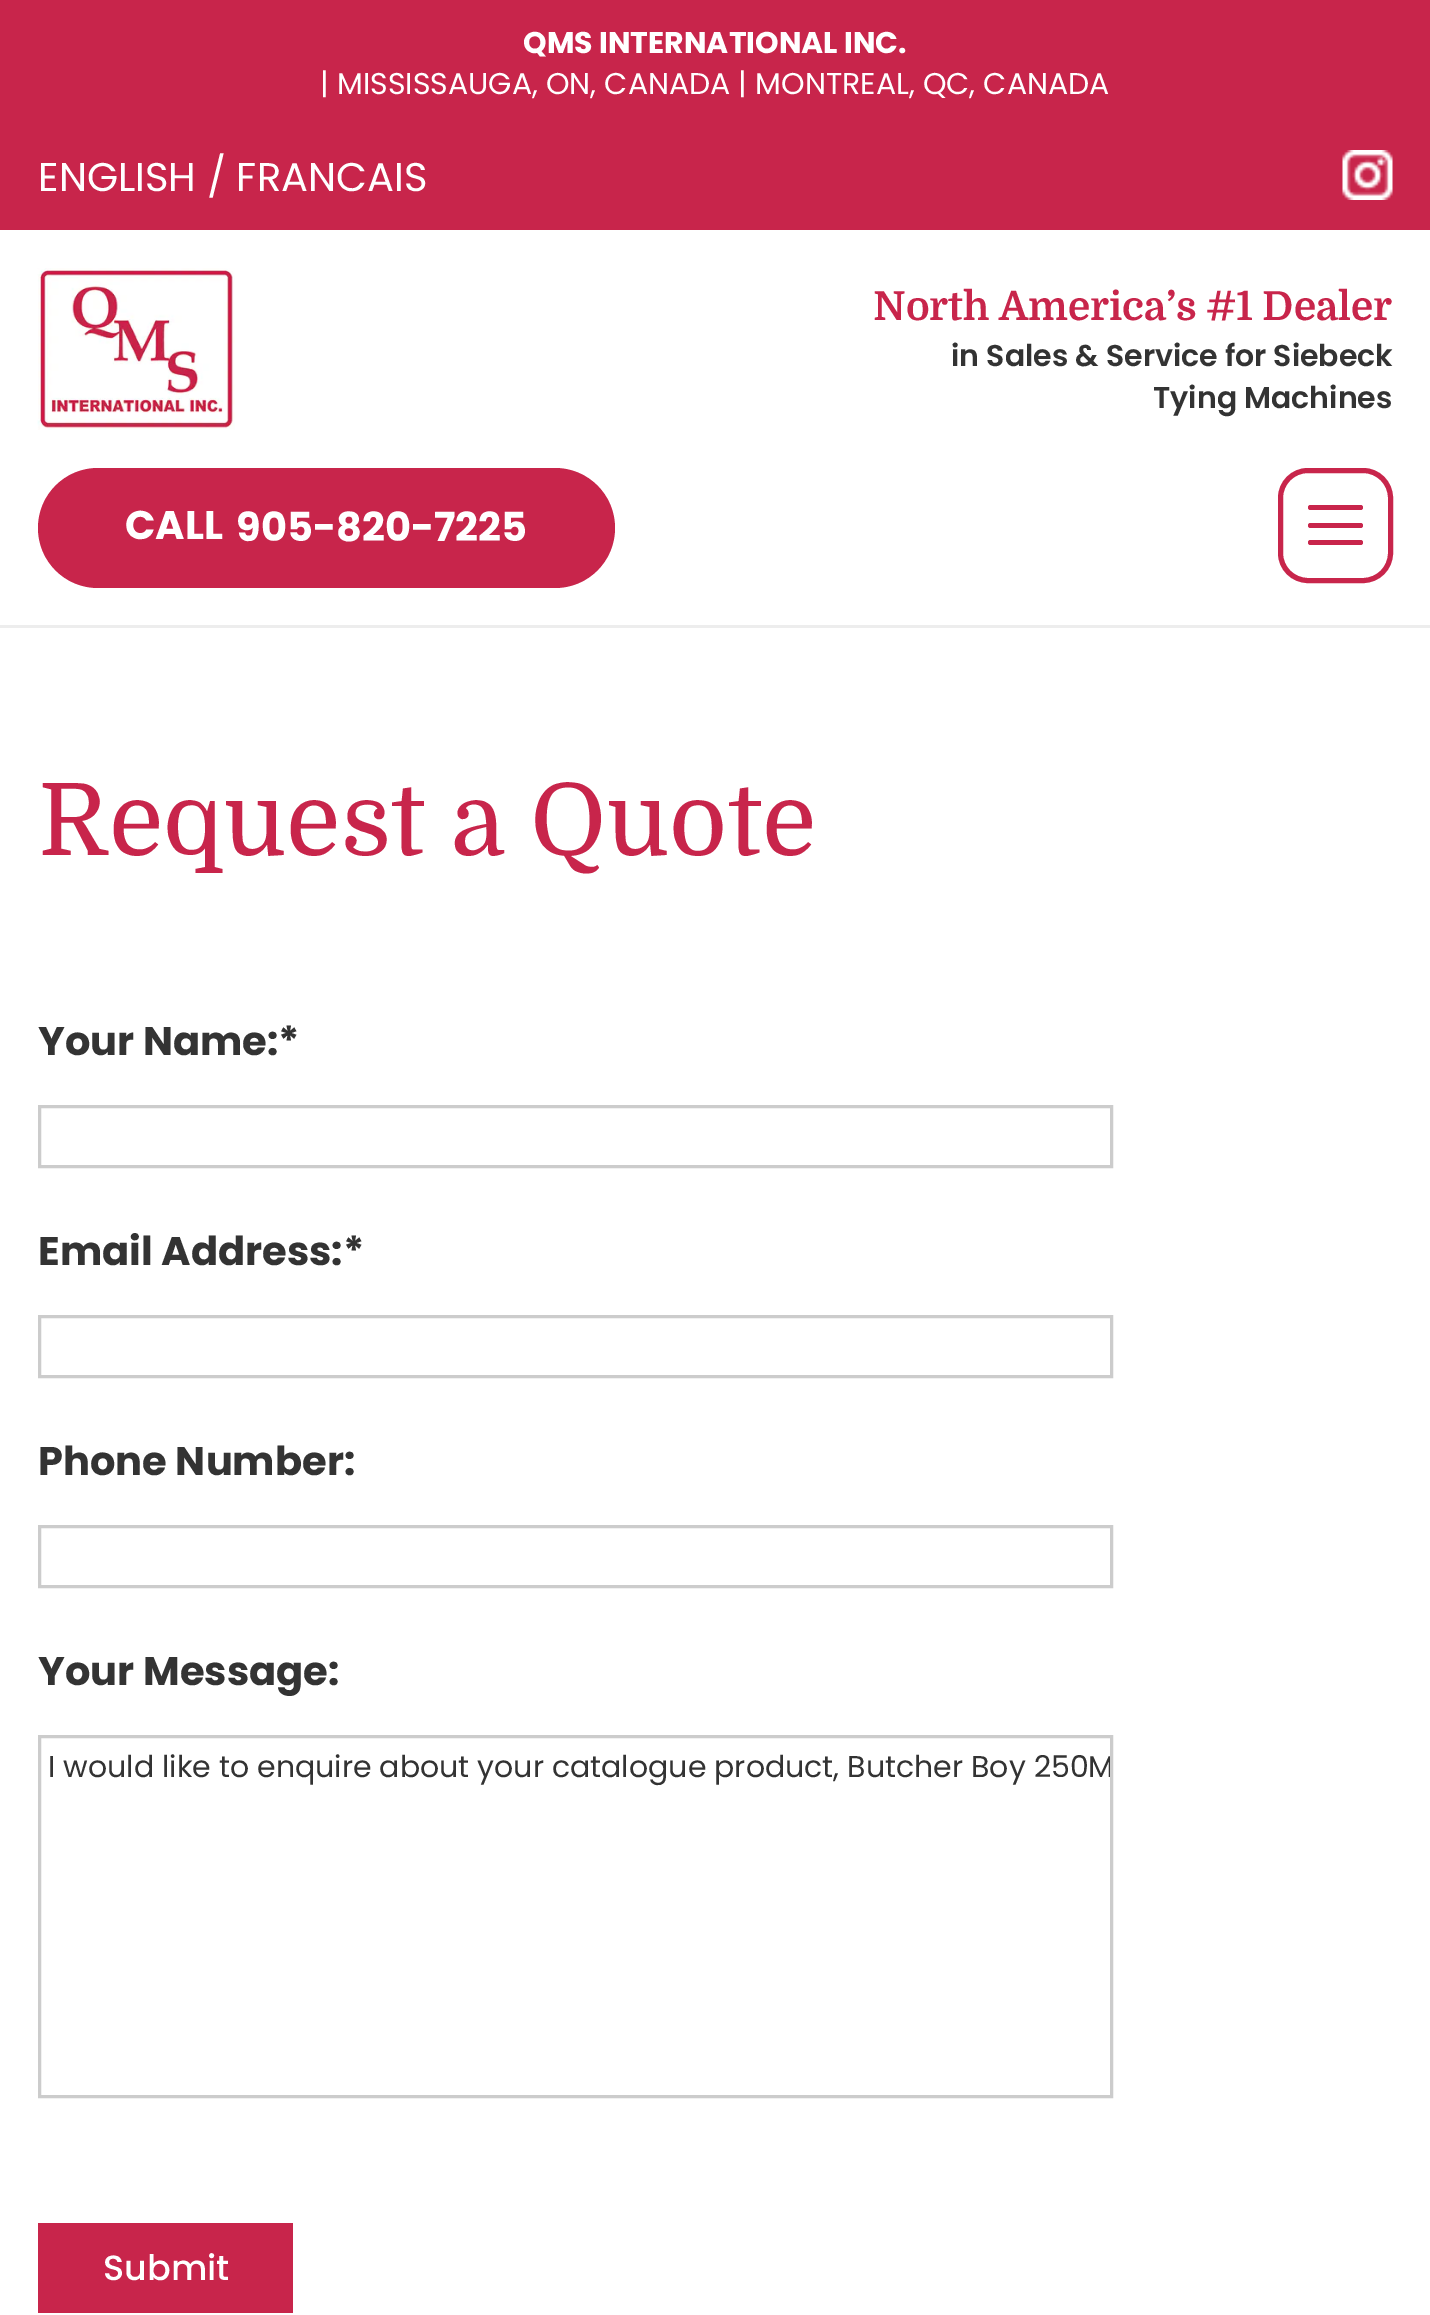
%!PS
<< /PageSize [1430 2315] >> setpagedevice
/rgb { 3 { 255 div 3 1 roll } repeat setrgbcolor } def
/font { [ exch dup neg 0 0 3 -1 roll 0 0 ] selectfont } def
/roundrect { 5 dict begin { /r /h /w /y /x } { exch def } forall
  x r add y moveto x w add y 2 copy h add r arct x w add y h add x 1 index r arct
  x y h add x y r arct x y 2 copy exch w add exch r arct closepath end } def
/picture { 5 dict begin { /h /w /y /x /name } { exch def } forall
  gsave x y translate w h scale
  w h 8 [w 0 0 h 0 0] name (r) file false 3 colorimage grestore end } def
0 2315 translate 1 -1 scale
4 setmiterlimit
255 255 255 rgb
0 0 1430 2315 rectfill
200 37 75 rgb
0 0 1430 230 rectfill
(img/1.rgb) 1342 150 51 50 picture
237 237 237 rgb
0 625 1430 3 rectfill
(img/2.rgb) 37 268 198 162 picture
200 37 75 rgb
38 468 577 120 60 roundrect fill
5 setlinewidth
1280.5 470.5 110 110 27.5 roundrect stroke
1308 505 55 5 2.5 roundrect fill
1308 523 55 5 2.5 roundrect fill
1308 540 55 5 2.5 roundrect fill
204 204 204 rgb
3 setlinewidth
39.5 1106.5 1072 60 rectstroke
39.5 1316.5 1072 60 rectstroke
39.5 1526.5 1072 60 rectstroke
39.5 1736.5 1072 360 rectstroke
200 37 75 rgb
38 2223 255 90 rectfill
/Poppins-Bold 30 font
255 255 255 rgb
523 53 moveto (QMS INTERNATIONAL INC.) show
/Poppins-Regular 30 font
320 94 moveto (| MISSISSAUGA, ON, CANADA | MONTREAL, QC, CANADA) show
/Poppins-Regular 40 font
38 191 moveto (ENGLISH / FRANCAIS) show
/Domine-Bold 40 font
200 37 75 rgb
873 320 moveto (North America’s #1 Dealer) show
/Poppins-SemiBold 30 font
51 51 51 rgb
951 366 moveto (in Sales & Service for Siebeck) show
1153 408 moveto (Tying Machines) show
/Poppins-Bold 40 font
255 255 255 rgb
125 539 moveto (CALL) show
236 541 moveto (905-820-7225) show
/Domine-Regular 100 font
200 37 75 rgb
38 855 moveto (Request a Quote) show
/Poppins-Bold 40 font
51 51 51 rgb
[
  [(Your Name:*) 38 1055]
  [(Email Address:*) 38 1265]
  [(Phone Number:) 38 1475]
  [(Your Message:) 38 1685]
] { aload pop moveto show } forall
/Poppins-Regular 30 font
48 1777 moveto (I would like to enquire about your catalogue product, Butcher Boy 250) show
gsave
40 1738 1070 357 rectclip
1088 1777 moveto (M) show
grestore
/Poppins-Medium 35 font
255 255 255 rgb
103 2280 moveto (Submit) show
showpage
